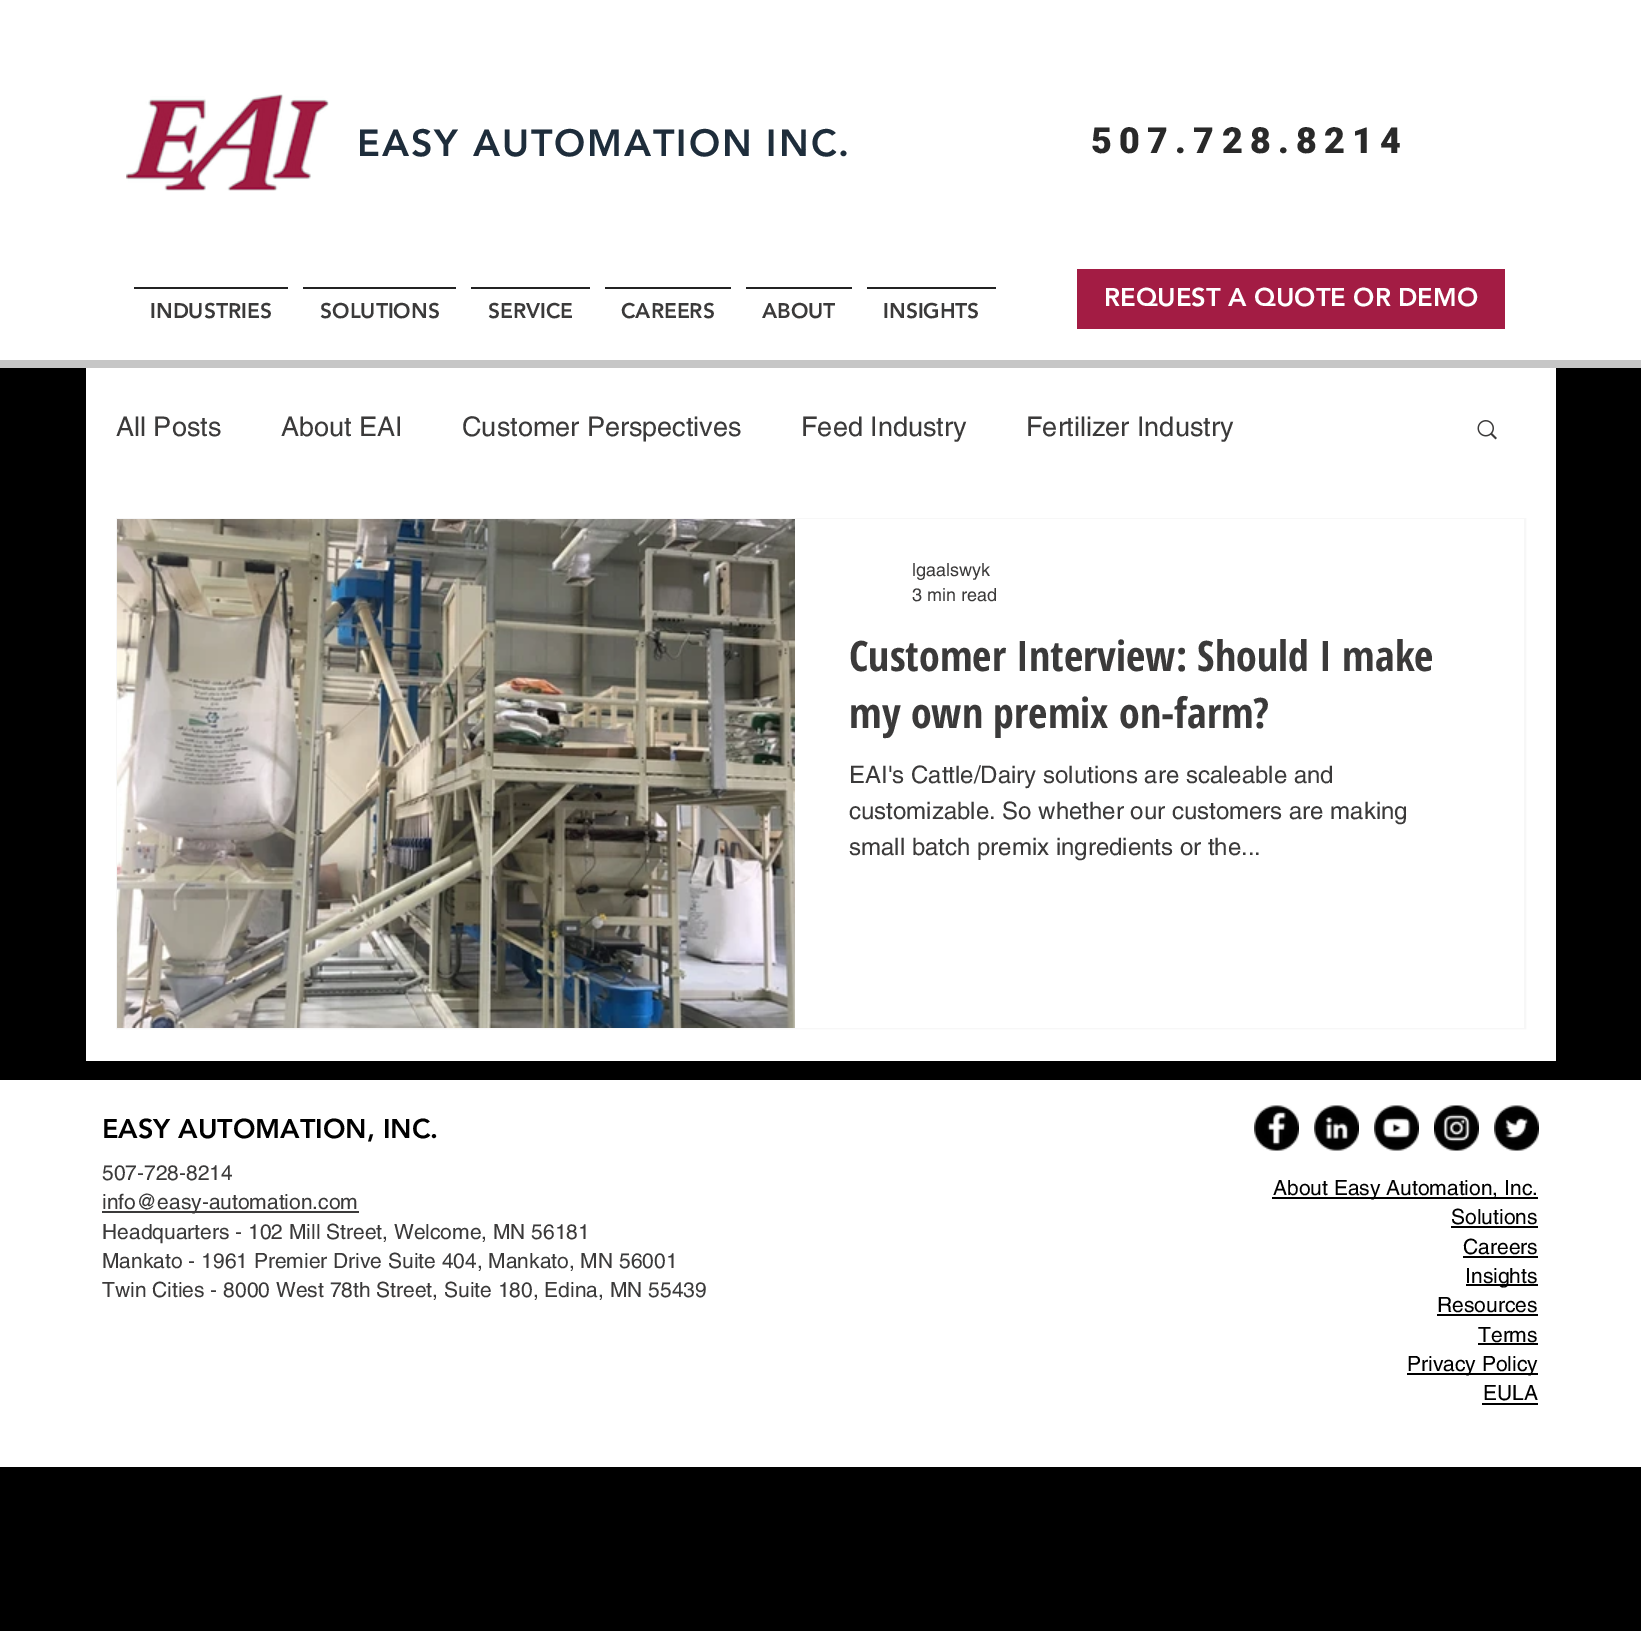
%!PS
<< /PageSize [1641 1631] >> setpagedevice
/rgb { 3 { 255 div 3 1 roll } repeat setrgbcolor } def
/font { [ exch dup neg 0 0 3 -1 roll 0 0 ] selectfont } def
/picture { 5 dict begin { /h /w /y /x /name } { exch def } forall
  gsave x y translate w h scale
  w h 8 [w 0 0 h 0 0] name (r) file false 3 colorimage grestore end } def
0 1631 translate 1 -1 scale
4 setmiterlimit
0 0 0 rgb
0 0 1641 1631 rectfill
255 255 255 rgb
0 0 1641 360 rectfill
198 198 198 rgb
0 360 1641 8 rectfill
(img/1.rgb) 126 94 203 97 picture
[
  [1077 269 428 60 163 28 68]
  [134 287 154 2 35 35 35]
  [303 287 153 2 35 35 35]
  [471 287 119 2 35 35 35]
  [605 287 126 2 35 35 35]
  [746 287 106 2 35 35 35]
  [867 287 129 2 35 35 35]
  [86 368 1470 693 255 255 255]
] { aload pop rgb rectfill } forall
(img/2.rgb) 1477 420 20 20 picture
247 247 247 rgb
2 setlinewidth
117 519 1408 509 rectstroke
(img/3.rgb) 117 519 678 509 picture
255 255 255 rgb
795 519 729 509 rectfill
0 1080 1641 387 rectfill
(img/4.rgb) 1254 1105 45 46 picture
(img/5.rgb) 1314 1105 45 46 picture
(img/6.rgb) 1374 1105 45 46 picture
(img/7.rgb) 1434 1105 45 46 picture
(img/8.rgb) 1494 1105 45 46 picture
[
  [102 1211 257 2 59 58 58]
  [1272 1197 266 2 0 0 0]
  [1451 1226 87 2 0 0 0]
  [1463 1256 75 2 0 0 0]
  [1466 1284 72 2 0 0 0]
  [1437 1314 101 2 0 0 0]
  [1478 1343 60 2 0 0 0]
  [1407 1373 131 2 0 0 0]
  [1482 1403 56 2 0 0 0]
] { aload pop rgb rectfill } forall
/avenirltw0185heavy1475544-Black 37.5 font
30 45 59 rgb
357 156 moveto 1.9 0 (EASY AUTOMATION INC.) ashow
/Roboto-Black 36 font
41 41 41 rgb
1091 153 moveto 7.25 0 (507.728.8214) ashow
/avenirltw0185heavy1475544-Black 25.5 font
255 255 255 rgb
1104 306 moveto (REQUEST A QUOTE OR DEMO) show
/avenirltw0185heavy1475544-Black 21 font
59 58 58 rgb
[
  [(INDUSTRIES) 150 318]
  [(SOLUTIONS) 320 318]
  [(SERVICE) 488 318]
  [(CAREERS) 621 318]
  [(ABOUT) 762 318]
  [(INSIGHTS) 883 318]
] { aload pop moveto show } forall
/helvetica-Regular 27 font
[
  [(All Posts) 116 436]
  [(About EAI) 281 436]
  [(Customer Perspectives) 462 436]
  [(Feed Industry) 801 436]
  [(Fertilizer Industry) 1026 436]
] { aload pop moveto show } forall
/helvetica-Regular 18 font
912 576 moveto (lgaalswyk) show
912 601 moveto (3 min read) show
/OpenSansCondensed-Bold 42 font
849 671 moveto (Customer Interview: Should I make) show
849 728 moveto (my own premix on-farm?) show
/helvetica-Regular 24 font
[
  [(EAI's Cattle/Dairy solutions are scaleable and) 849 783]
  [(customizable. So whether our customers are making) 849 819]
  [(small batch premix ingredients or the...) 849 855]
] { aload pop moveto show } forall
/avenirltw0185heavy1475544-Black 27 font
0 0 0 rgb
102 1138 moveto (EASY AUTOMATION, INC.) show
/helvetica-Regular 21 font
59 58 58 rgb
[
  [(507-728-8214) 102 1180]
  [(info@easy-automation.com) 102 1209]
  [(Headquarters - 102 Mill Street, Welcome, MN 56181) 102 1239]
  [(Mankato - 1961 Premier Drive Suite 404, Mankato, MN 56001) 102 1268]
  [(Twin Cities - 8000 West 78th Street, Suite 180, Edina, MN 55439) 102 1297]
] { aload pop moveto show } forall
0 0 0 rgb
[
  [(About Easy Automation, Inc.) 1273 1195]
  [(Solutions) 1451 1224]
  [(Careers) 1463 1254]
  [(Insights) 1465 1283]
  [(Resources) 1437 1312]
  [(Terms) 1478 1342]
  [(Privacy Policy) 1407 1371]
  [(EULA) 1483 1400]
] { aload pop moveto show } forall
showpage
